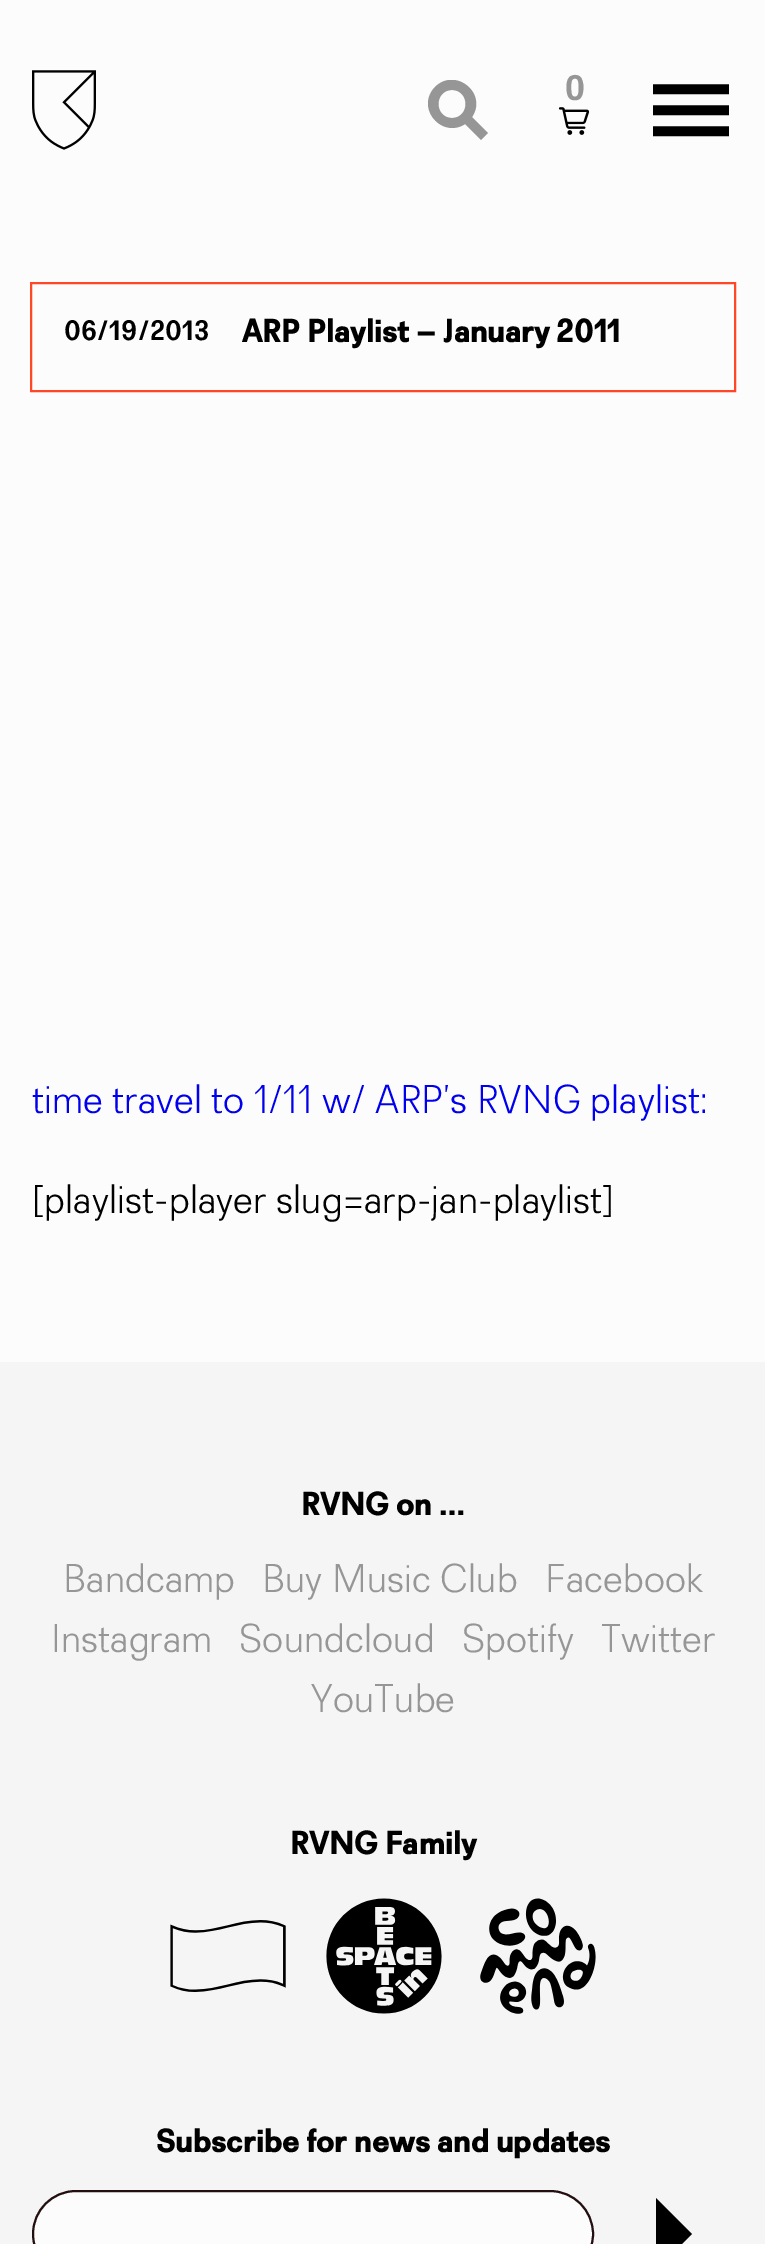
%!PS
<< /PageSize [765 2244] >> setpagedevice
/rgb { 3 { 255 div 3 1 roll } repeat setrgbcolor } def
/font { [ exch dup neg 0 0 3 -1 roll 0 0 ] selectfont } def
/roundrect { 5 dict begin { /r /h /w /y /x } { exch def } forall
  x r add y moveto x w add y 2 copy h add r arct x w add y h add x 1 index r arct
  x y h add x y r arct x y 2 copy exch w add exch r arct closepath end } def
/picture { 5 dict begin { /h /w /y /x /name } { exch def } forall
  gsave x y translate w h scale
  w h 8 [w 0 0 h 0 0] name (r) file false 3 colorimage grestore end } def
0 2244 translate 1 -1 scale
4 setmiterlimit
252 252 252 rgb
0 0 765 2244 rectfill
(img/1.rgb) 558 107 32 28 picture
(img/2.rgb) 32 70 64 80 picture
gsave
428 80 60 60 rectclip
150 150 150 rgb
488 133 moveto 472 117 lineto 488 93 455 67 435 87 curveto 415 108 442 139 465 124 curveto 481 140 lineto closepath 452 118 moveto 434 118 434 90 452 90 curveto 470 90 470 118 452 118 curveto closepath fill
grestore
255 71 40 rgb
2 setlinewidth
31 283 704 108 rectstroke
245 245 245 rgb
0 1362 765 882 rectfill
(img/3.rgb) 170 1920 116 72 picture
(img/4.rgb) 326 1898 116 116 picture
(img/5.rgb) 480 1898 116 116 picture
252 252 252 rgb
33 2191 560 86 43 roundrect gsave fill grestore
35 15 15 rgb
stroke
0 0 0 rgb
692 2234 moveto 656 2198 lineto 656 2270 lineto closepath fill
/LiberationSans-Bold 36 font
150 150 150 rgb
565 100 moveto (0) show
/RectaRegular-Regular 80 font
0 0 0 rgb
gsave 673 79 translate 90 rotate 0 0 moveto 0.25 0 (|||) ashow grestore
/RectaRegular-Regular 28 font
64 340 moveto 0.25 0 (06/19/2013) ashow
/RectaRegular-Bold 32 font
242 342 moveto 0.25 0 (ARP Playlist – January 2011) ashow
/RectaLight-Regular 40 font
0 0 238 rgb
32 1113 moveto 0.25 0 (time travel to 1/11 w/ ARP’s RVNG playlist:) ashow
0 0 0 rgb
32 1213 moveto 0.25 0 ([playlist-player slug=arp-jan-playlist]) ashow
/RectaRegular-Bold 32 font
301 1515 moveto 0.25 0 (RVNG on …) ashow
/RectaLight-Regular 40 font
150 150 150 rgb
63 1592 moveto 0.25 0 (Bandcamp) ashow
262 1592 moveto 0.25 0 (Buy Music Club) ashow
545 1592 moveto 0.25 0 (Facebook) ashow
51 1652 moveto 0.25 0 (Instagram) ashow
239 1652 moveto 0.25 0 (Soundcloud) ashow
462 1652 moveto 0.25 0 (Spotify) ashow
601 1652 moveto 0.25 0 (Twitter) ashow
311 1712 moveto 0.25 0 (YouTube) ashow
/RectaRegular-Bold 32 font
0 0 0 rgb
290 1854 moveto 0.25 0 (RVNG Family) ashow
156 2152 moveto 0.25 0 (Subscribe for news and updates) ashow
showpage
